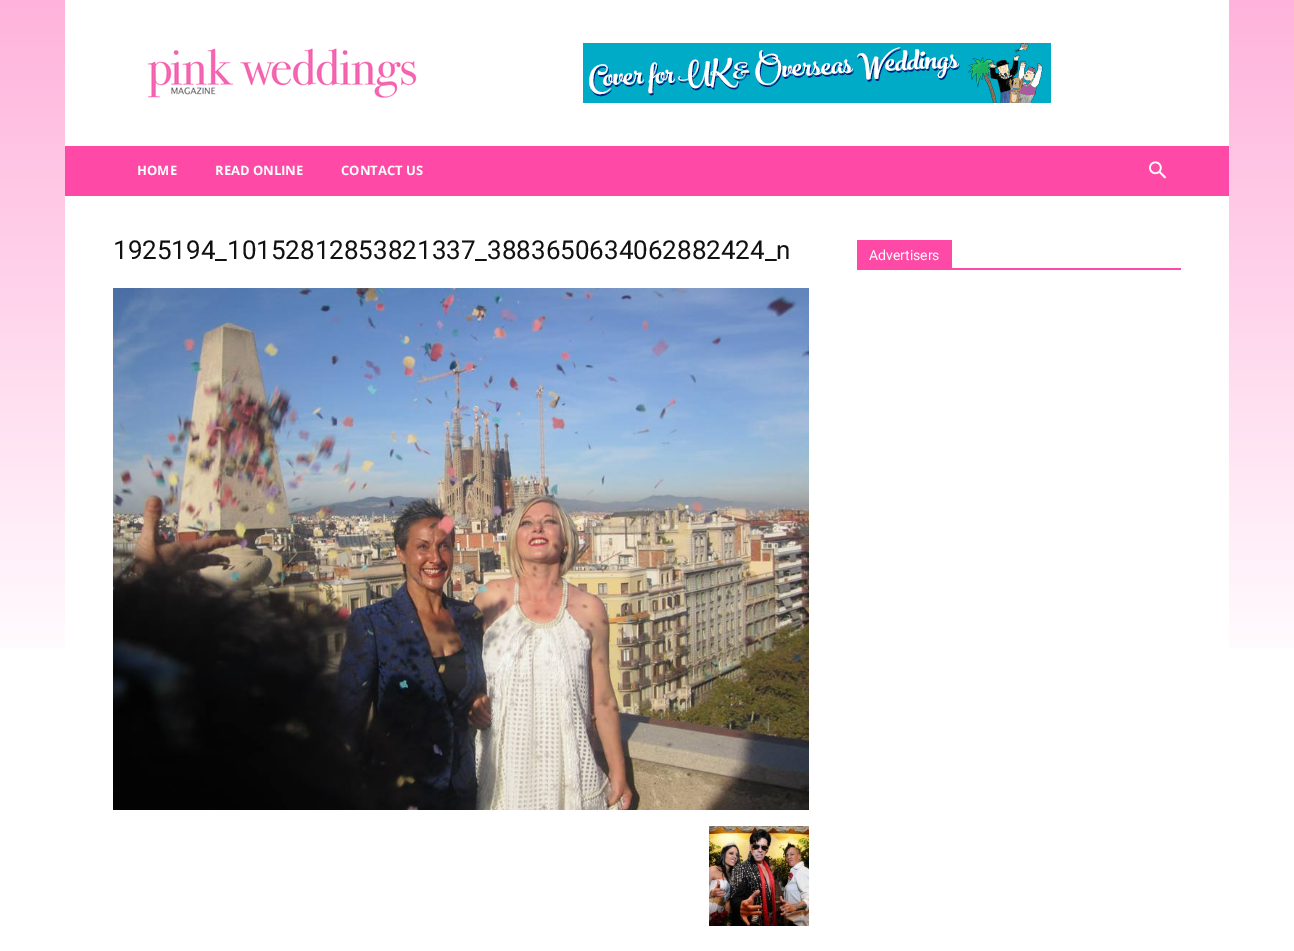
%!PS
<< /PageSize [1294 951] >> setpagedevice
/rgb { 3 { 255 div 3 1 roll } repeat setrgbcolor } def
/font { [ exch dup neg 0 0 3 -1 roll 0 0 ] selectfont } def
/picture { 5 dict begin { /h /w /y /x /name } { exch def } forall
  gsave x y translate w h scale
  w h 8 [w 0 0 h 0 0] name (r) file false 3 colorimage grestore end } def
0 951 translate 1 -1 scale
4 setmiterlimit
255 255 255 rgb
0 0 1294 951 rectfill
(img/1.rgb) 0 0 1294 648 picture
65 0 1164 146 rectfill
(img/2.rgb) 148 48 269 50 picture
(img/3.rgb) 583 43 468 60 picture
255 73 167 rgb
65 146 1164 50 rectfill
(img/4.rgb) 1149 161 17 18 picture
255 255 255 rgb
65 196 1164 452 rectfill
(img/5.rgb) 113 288 696 522 picture
(img/6.rgb) 709 826 100 100 picture
255 73 167 rgb
857 268 324 2 rectfill
857 240 95 28 rectfill
/OpenSans-Bold 13 font
255 255 255 rgb
[
  [(HOME) 137 175]
  [(READ ONLINE) 215 175]
  [(CONTACT US) 341 175]
] { aload pop moveto show } forall
/Roboto-Regular 26 font
17 17 17 rgb
113 259 moveto (1925194_10152812853821337_3883650634062882424_n) show
/Roboto-Regular 14 font
255 255 255 rgb
869 260 moveto (Advertisers) show
showpage
